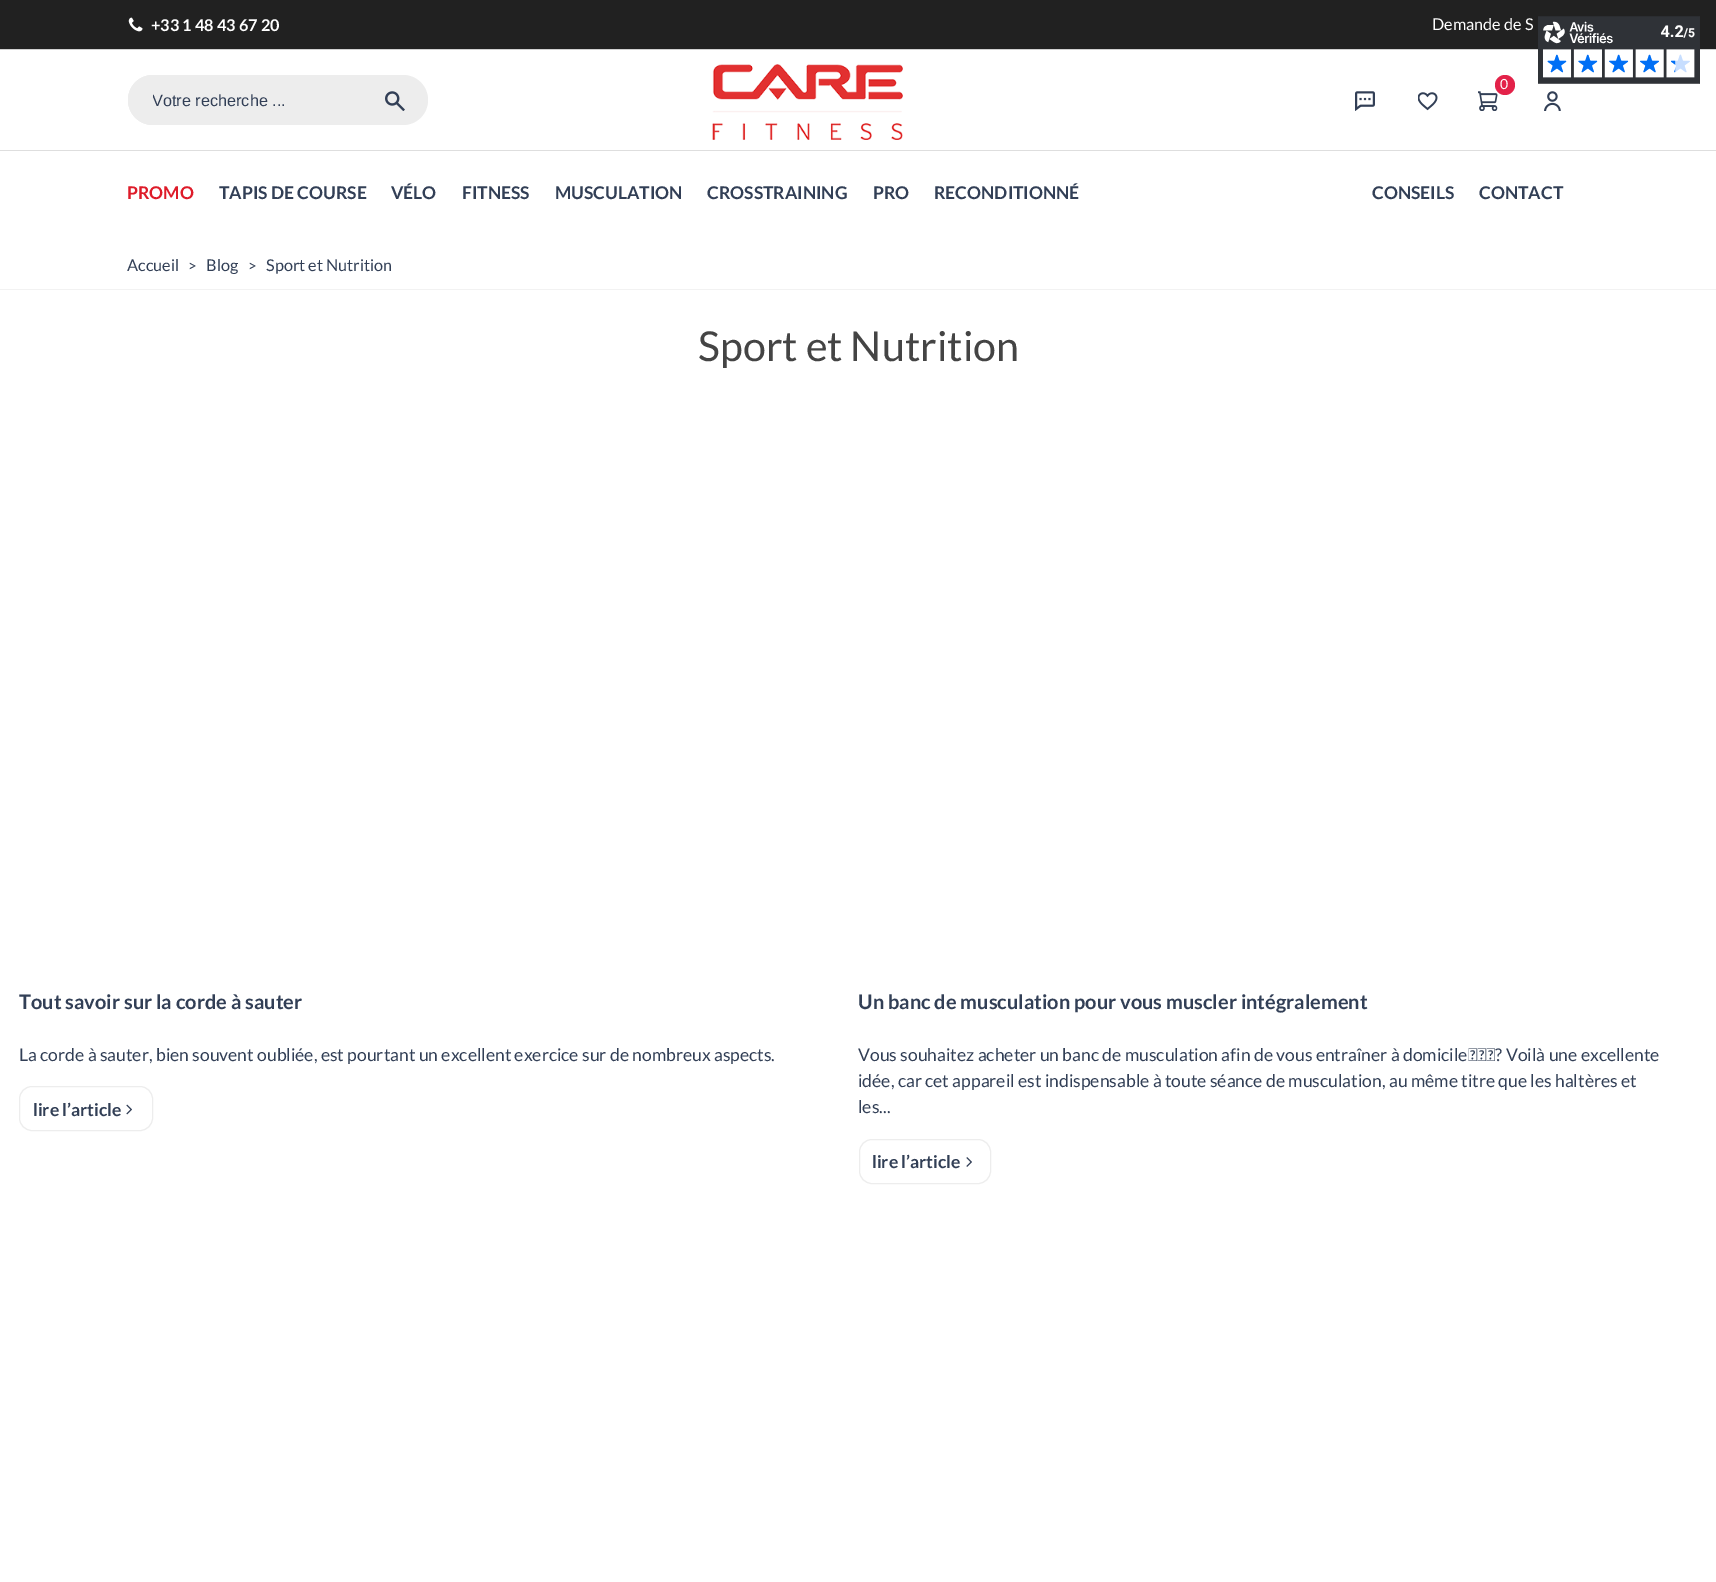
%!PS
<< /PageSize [1716 1582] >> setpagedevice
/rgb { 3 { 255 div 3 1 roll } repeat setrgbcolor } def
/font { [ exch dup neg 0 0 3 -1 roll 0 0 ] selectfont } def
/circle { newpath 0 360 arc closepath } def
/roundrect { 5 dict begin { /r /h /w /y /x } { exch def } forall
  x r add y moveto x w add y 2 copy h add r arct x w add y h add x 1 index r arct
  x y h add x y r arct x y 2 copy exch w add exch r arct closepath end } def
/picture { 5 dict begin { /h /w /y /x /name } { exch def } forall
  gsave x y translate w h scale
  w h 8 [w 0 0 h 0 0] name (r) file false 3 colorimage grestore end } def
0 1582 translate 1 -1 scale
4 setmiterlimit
255 255 255 rgb
0 0 1716 1582 rectfill
33 33 33 rgb
0 0 1716 49 rectfill
208 208 208 rgb
0 49 1716 1 rectfill
(img/1.rgb) 1538 16 162 68 picture
(img/2.rgb) 128 17 15 15 picture
222 222 222 rgb
0 150 1716 1 rectfill
(img/3.rgb) 712 64 191 76 picture
(img/4.rgb) 1478 91 20 20 picture
227 34 73 rgb
1505 85 10 circle fill
(img/5.rgb) 1355 91 20 20 picture
(img/6.rgb) 1418 92 20 19 picture
(img/7.rgb) 1544 91 17 20 picture
237 237 237 rgb
128 75 300 50 25 roundrect fill
128 75 248 50 25 roundrect fill
(img/8.rgb) 385 91 20 20 picture
242 242 242 rgb
0 289 1716 1 rectfill
237 237 237 rgb
19.5 1086.5 133 44 12.5 roundrect stroke
(img/9.rgb) 126 1104 6 11 picture
859.5 1139.5 131 44 12.5 roundrect stroke
(img/10.rgb) 966 1157 6 10 picture
/Lato-Bold 16.25 font
255 255 255 rgb
151 31 moveto (+33 1 48 43 67 20) show
/Lato-Regular 16.25 font
1432 30 moveto (Demande de S) show
/Lato-Regular 14 font
1500 89 moveto (0) show
gsave
153 91 216 19 rectclip
/LiberationSans-Regular 16.25 font
50 63 86 rgb
152 106 moveto (Votre recherche ...) show
grestore
/Lato-Bold 17.5 font
222 27 41 rgb
127 199 moveto (PROMO) show
50 63 86 rgb
[
  [(TAPIS DE COURSE) 219 199]
  [(VÉLO) 391 199]
  [(FITNESS) 462 199]
  [(MUSCULATION) 555 199]
  [(CROSSTRAINING) 707 199]
  [(PRO) 873 199]
  [(RECONDITIONNÉ) 934 199]
  [(CONSEILS) 1372 199]
  [(CONTACT) 1479 199]
] { aload pop moveto show } forall
/Lato-Regular 16.25 font
127 271 moveto (Accueil) show
/Lato-Regular 15 font
188 271 moveto (>) show
/Lato-Regular 16.25 font
206 271 moveto (Blog) show
/Lato-Regular 15 font
248 271 moveto (>) show
/Lato-Regular 16.25 font
266 271 moveto (Sport et Nutrition) show
/Lato-Regular 41.25 font
68 68 68 rgb
698 361 moveto (Sport et Nutrition) show
/Lato-Bold 20 font
50 63 86 rgb
19 1009 moveto (Tout savoir sur la corde à sauter) show
/Lato-Regular 17.5 font
19 1061 moveto (La corde à sauter, bien souvent oubliée, est pourtant un excellent exercice sur de nombreux aspects.) show
/Lato-Bold 17.5 font
33 1116 moveto (lire l’article) show
/Lato-Bold 20 font
858 1009 moveto (Un banc de musculation pour vous muscler intégralement) show
/Lato-Regular 17.5 font
[
  [(Vous souhaitez acheter un banc de musculation afin de vous entraîner à domicile ? Voilà une excellente) 858 1061]
  [(idée, car cet appareil est indispensable à toute séance de musculation, au même titre que les haltères et) 858 1087]
  [(les...) 858 1113]
] { aload pop moveto show } forall
/Lato-Bold 17.5 font
872 1168 moveto (lire l’article) show
showpage
